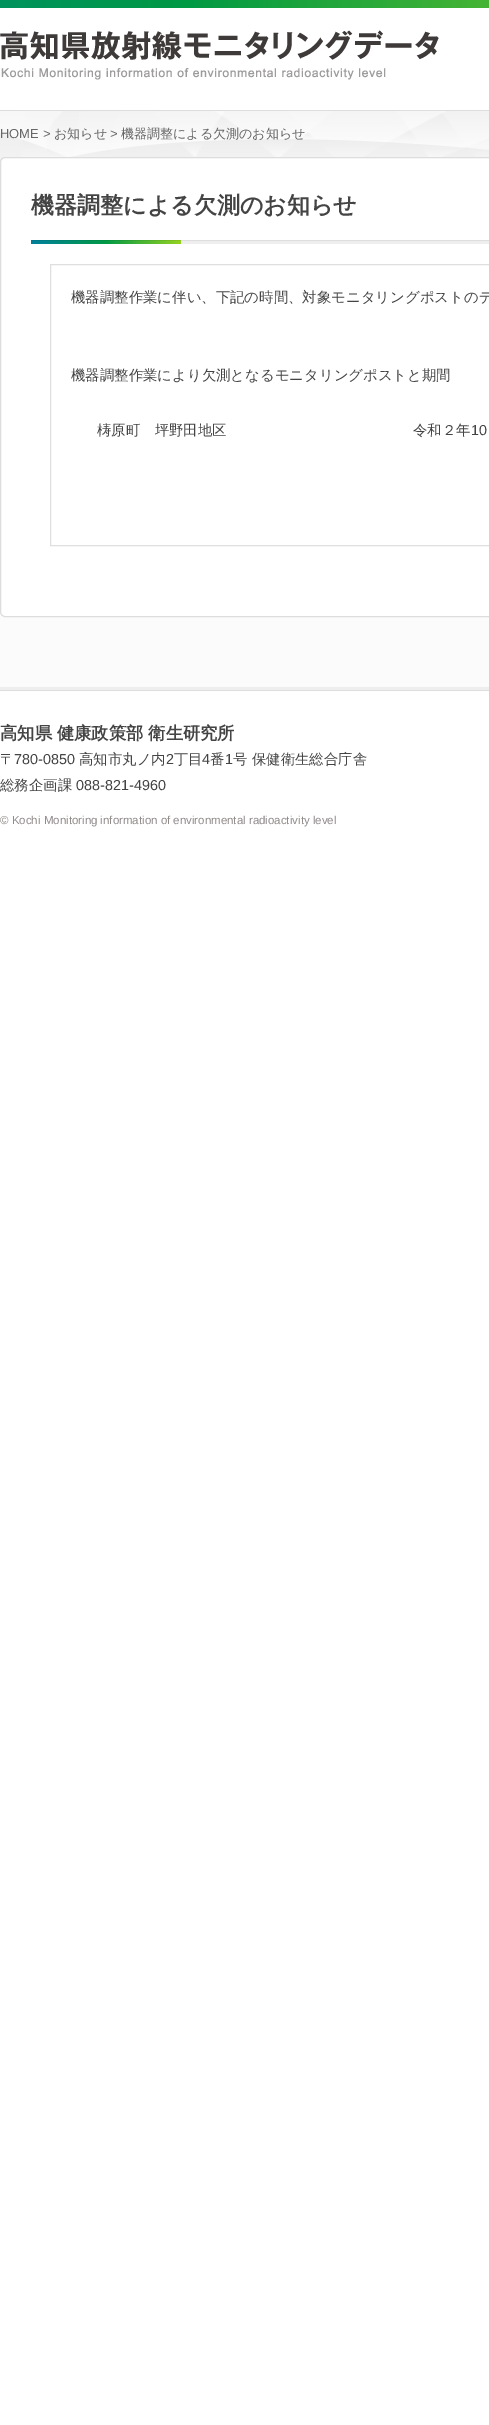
%!PS
<< /PageSize [489 2425] >> setpagedevice
/rgb { 3 { 255 div 3 1 roll } repeat setrgbcolor } def
/font { [ exch dup neg 0 0 3 -1 roll 0 0 ] selectfont } def
/roundrect { 5 dict begin { /r /h /w /y /x } { exch def } forall
  x r add y moveto x w add y 2 copy h add r arct x w add y h add x 1 index r arct
  x y h add x y r arct x y 2 copy exch w add exch r arct closepath end } def
/picture { 5 dict begin { /h /w /y /x /name } { exch def } forall
  gsave x y translate w h scale
  w h 8 [w 0 0 h 0 0] name (r) file false 3 colorimage grestore end } def
0 2425 translate 1 -1 scale
4 setmiterlimit
255 255 255 rgb
0 0 489 2425 rectfill
(img/1.rgb) 0 0 489 8 picture
221 221 221 rgb
0 110 489 1 rectfill
(img/2.rgb) 0 30 439 50 picture
251 251 251 rgb
0 612 489 75 rectfill
(img/3.rgb) 0 111 489 51 picture
238 238 238 rgb
0 687 489 3 rectfill
255 255 255 rgb
0.5 157.5 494 459 4.5 roundrect gsave fill grestore
221 221 221 rgb
stroke
(img/4.rgb) 31 240 458 4 picture
223 223 223 rgb
50.5 264.5 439 281 rectstroke
221 221 221 rgb
0 690 489 1 rectfill
/LiberationSans-Regular 13 font
102 102 102 rgb
0 138 moveto (HOME >) show
/WenQuanYiZenHei-Medium 13 font
54 138 moveto (お知らせ) show
/LiberationSans-Regular 13 font
110 138 moveto (>) show
/WenQuanYiZenHei-Medium 13 font
121 138 moveto (機器調整による欠測のお知らせ) show
/WenQuanYiZenHei-Bold 23 font
68 68 68 rgb
31 213 moveto (機器調整による欠測のお知らせ) show
/WenQuanYiZenHei-Medium 14.4 font
[
  [(機器調整作業に伴い、下記の時間、対象モニタリングポストのデ) 71 302]
  [(機器調整作業により欠測となるモニタリングポストと期間) 71 380]
  [(梼原町　坪野田地区) 97 435]
  [(令和２年) 413 435]
] { aload pop moveto show } forall
/LiberationSans-Regular 14.4 font
471 435 moveto (10) show
/WenQuanYiZenHei-Bold 17.25 font
0 739 moveto (高知県 健康政策部 衛生研究所) show
/WenQuanYiZenHei-Medium 14.4 font
0 764 moveto (〒) show
/LiberationSans-Regular 14.4 font
14 764 moveto (780-0850) show
/WenQuanYiZenHei-Medium 14.4 font
79 764 moveto (高知市丸ノ内) show
/LiberationSans-Regular 14.4 font
166 764 moveto (2) show
/WenQuanYiZenHei-Medium 14.4 font
174 764 moveto (丁目) show
/LiberationSans-Regular 14.4 font
202 764 moveto (4) show
/WenQuanYiZenHei-Medium 14.4 font
210 764 moveto (番) show
/LiberationSans-Regular 14.4 font
225 764 moveto (1) show
/WenQuanYiZenHei-Medium 14.4 font
233 764 moveto (号 保健衛生総合庁舎) show
0 790 moveto (総務企画課) show
/LiberationSans-Regular 14.4 font
76 790 moveto (088-821-4960) show
/LiberationSans-Regular 11.5 font
145 139 138 rgb
0 824 moveto (© Kochi Monitoring information of environmental radioactivity level) show
showpage
